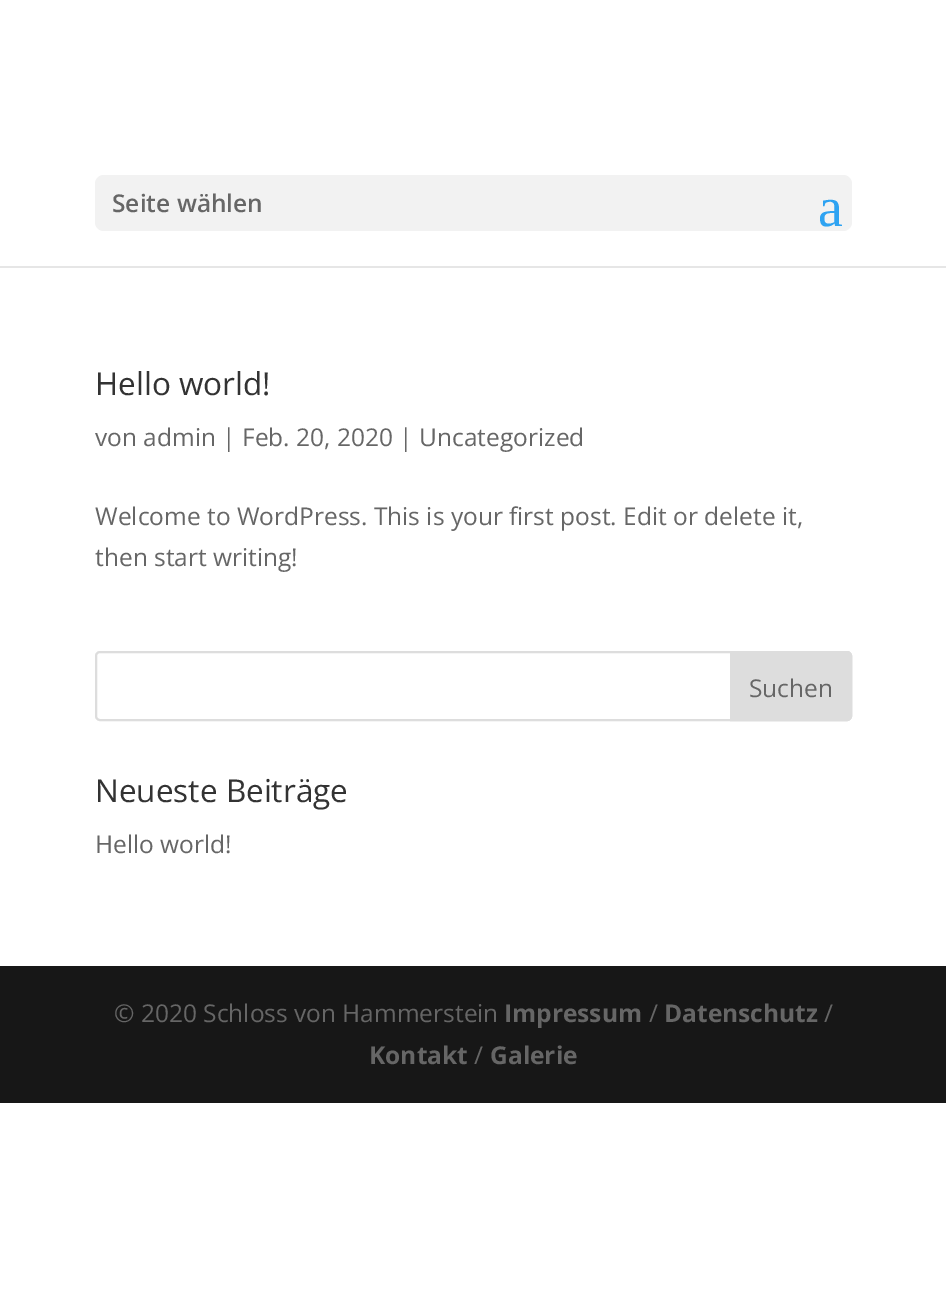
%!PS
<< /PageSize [946 1316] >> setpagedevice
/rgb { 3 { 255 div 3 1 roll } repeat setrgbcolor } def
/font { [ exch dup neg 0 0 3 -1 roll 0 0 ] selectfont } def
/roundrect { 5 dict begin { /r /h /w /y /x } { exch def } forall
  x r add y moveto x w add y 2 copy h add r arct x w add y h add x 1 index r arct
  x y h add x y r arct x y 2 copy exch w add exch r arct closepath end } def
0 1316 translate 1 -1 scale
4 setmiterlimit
255 255 255 rgb
0 0 946 1316 rectfill
230 230 230 rgb
0 266 moveto 0 268 lineto 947 268 lineto 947 2 lineto 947 266 lineto closepath fill
242 242 242 rgb
95 175 757 56 9 roundrect fill
221 221 221 rgb
2 setlinewidth
96 652 755 68 4 roundrect stroke
731 652 moveto 847 652 lineto 849 652 851 654 851 656 curveto 851 716 lineto 851 718 849 720 847 720 curveto 731 720 lineto closepath gsave fill grestore
stroke
23 23 23 rgb
0 966 946 137 rectfill
/OpenSans-SemiBold 24.5 font
102 102 102 rgb
112 212 moveto (Seite wählen) show
/LiberationSerif-Regular 56 font
46 163 242 rgb
818 226 moveto (a) show
/OpenSans-Regular 31.5 font
51 51 51 rgb
95 395 moveto (Hello world!) show
/OpenSans-Regular 24.5 font
102 102 102 rgb
[
  [(von admin | Feb. 20, 2020 | Uncategorized) 95 446]
  [(Welcome to WordPress. This is your first post. Edit or delete it,) 95 525]
  [(then start writing!) 95 566]
  [(Suchen) 749 697]
] { aload pop moveto show } forall
/OpenSans-Regular 31.5 font
51 51 51 rgb
95 802 moveto (Neueste Beiträge) show
/OpenSans-Regular 24.5 font
102 102 102 rgb
95 853 moveto (Hello world!) show
114 1022 moveto (© 2020 Schloss von Hammerstein) show
/OpenSans-Bold 24.5 font
504 1022 moveto (Impressum) show
/OpenSans-Regular 24.5 font
649 1022 moveto (/) show
/OpenSans-Bold 24.5 font
664 1022 moveto (Datenschutz) show
/OpenSans-Regular 24.5 font
824 1022 moveto (/) show
/OpenSans-Bold 24.5 font
369 1064 moveto (Kontakt) show
/OpenSans-Regular 24.5 font
474 1064 moveto (/) show
/OpenSans-Bold 24.5 font
490 1064 moveto (Galerie) show
showpage
